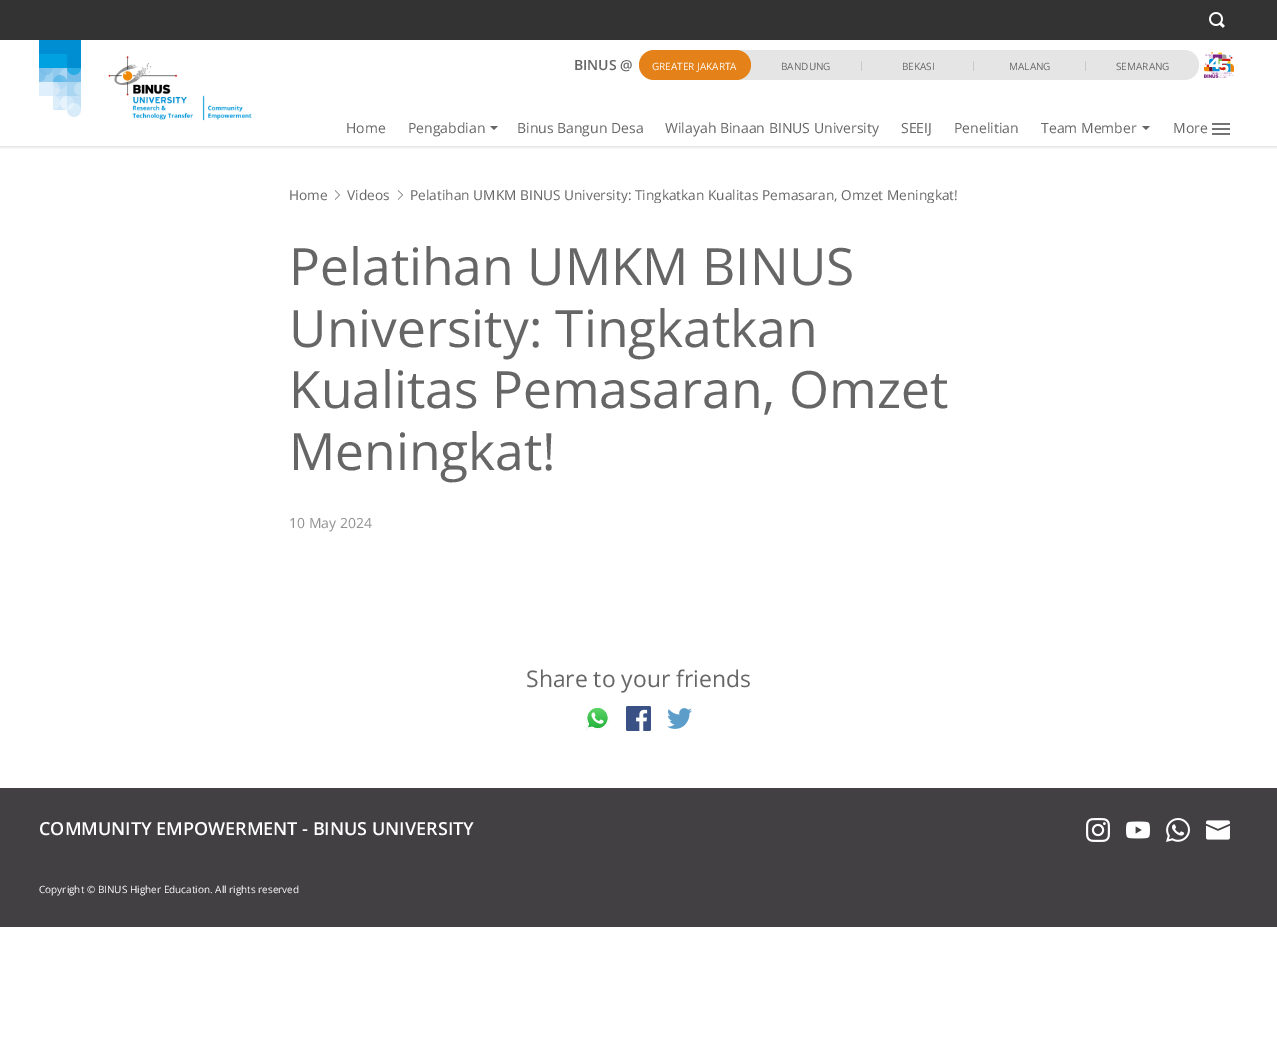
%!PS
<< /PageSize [1277 1061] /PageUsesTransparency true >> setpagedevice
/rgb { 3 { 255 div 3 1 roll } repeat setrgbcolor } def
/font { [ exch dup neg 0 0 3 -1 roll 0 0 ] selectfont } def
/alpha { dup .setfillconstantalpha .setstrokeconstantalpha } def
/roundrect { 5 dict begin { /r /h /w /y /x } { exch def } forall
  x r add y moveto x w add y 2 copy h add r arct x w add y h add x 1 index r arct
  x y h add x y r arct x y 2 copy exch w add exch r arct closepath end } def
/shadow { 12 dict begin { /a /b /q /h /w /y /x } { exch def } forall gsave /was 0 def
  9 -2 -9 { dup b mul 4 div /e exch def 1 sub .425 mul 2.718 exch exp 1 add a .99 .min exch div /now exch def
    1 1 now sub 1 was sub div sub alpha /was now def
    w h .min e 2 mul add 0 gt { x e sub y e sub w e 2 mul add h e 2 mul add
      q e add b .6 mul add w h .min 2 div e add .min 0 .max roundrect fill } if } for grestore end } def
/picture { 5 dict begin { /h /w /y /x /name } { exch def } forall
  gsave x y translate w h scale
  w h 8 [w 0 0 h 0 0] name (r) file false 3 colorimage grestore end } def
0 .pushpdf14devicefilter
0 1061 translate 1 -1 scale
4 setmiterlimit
255 255 255 rgb
0 0 1277 1061 rectfill
gsave
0 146 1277 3 rectclip
0 0 0 rgb
0 40 1277 106 0 2.5 0.2 shadow
grestore
51 51 51 rgb
0 0 1277 40 rectfill
(img/1.rgb) 1209 12 16 16 picture
(img/2.rgb) 39 40 42 77 picture
(img/3.rgb) 108 56 144 65 picture
229 229 229 rgb
736 50 351 30 rectfill
228 129 24 rgb
639 50 112 30 15 roundrect fill
[
  [861 61 1 10 201 201 201]
  [973 61 1 10 201 201 201]
  [1085 61 1 10 201 201 201]
] { aload pop rgb rectfill } forall
229 229 229 rgb
1087 50 moveto 1184 50 lineto 1192.5 50 1199 56.5 1199 65 curveto 1199 73.5 1192.5 80 1184 80 curveto 1087 80 lineto closepath fill
(img/4.rgb) 1204 52 30 26 picture
102 102 102 rgb
490 126 moveto 498 126 lineto 494 130 lineto closepath fill
1142 126 moveto 1150 126 lineto 1146 130 lineto closepath fill
(img/5.rgb) 1212 123 18 12 picture
335 200 moveto 335 190 lineto 340 195 lineto closepath fill
255 255 255 rgb
334 200 moveto 334 190 lineto 339 195 lineto closepath fill
102 102 102 rgb
398 200 moveto 398 190 lineto 403 195 lineto closepath fill
255 255 255 rgb
397 200 moveto 397 190 lineto 402 195 lineto closepath fill
(img/6.rgb) 586 706 23 24 picture
(img/7.rgb) 626 706 25 25 picture
(img/8.rgb) 667 708 25 21 picture
66 64 67 rgb
0 788 1277 139 rectfill
(img/9.rgb) 1086 818 24 24 picture
(img/10.rgb) 1126 821 24 18 picture
(img/11.rgb) 1166 818 24 24 picture
(img/12.rgb) 1206 820 24 20 picture
/OpenSans-SemiBold 14 font
102 102 102 rgb
574 70 moveto (BINUS @) show
/OpenSans-Regular 10 font
255 255 255 rgb
652 70 moveto (GREATER JAKARTA) show
102 102 102 rgb
[
  [(BANDUNG) 781 70]
  [(BEKASI) 902 70]
  [(MALANG) 1009 70]
  [(SEMARANG) 1116 70]
] { aload pop moveto show } forall
/OpenSans-Regular 14 font
[
  [(Home) 346 133]
  [(Pengabdian) 408 133]
  [(Binus Bangun Desa) 517 133]
  [(Wilayah Binaan BINUS University) 665 133]
  [(SEEIJ) 901 133]
  [(Penelitian) 954 133]
  [(Team Member) 1041 133]
  [(More) 1173 133]
] { aload pop moveto show } forall
/OpenSans-Regular 13.7 font
289 200 moveto (Home) show
347 200 moveto (Videos) show
gsave
289 186 700 17 rectclip
410 200 moveto (Pelatihan UMKM BINUS University: Tingkatkan Kualitas Pemasaran, Omzet Meningkat!) show
grestore
/OpenSans-Regular 51.5 font
[
  [(Pelatihan UMKM BINUS) 289 285]
  [(University: Tingkatkan) 289 347]
  [(Kualitas Pemasaran, Omzet) 289 408]
  [(Meningkat!) 289 470]
] { aload pop moveto show } forall
/OpenSans-Regular 14 font
145 145 145 rgb
289 528 moveto (10 May 2024) show
/OpenSans-Regular 22.9 font
102 102 102 rgb
526 687 moveto (Share to your friends) show
/OpenSans-SemiBold 18 font
255 255 255 rgb
39 835 moveto (COMMUNITY EMPOWERMENT - BINUS UNIVERSITY) show
/OpenSans-Regular 10 font
39 893 moveto (Copyright © BINUS Higher Education. All rights reserved) show
.poppdf14devicefilter showpage
